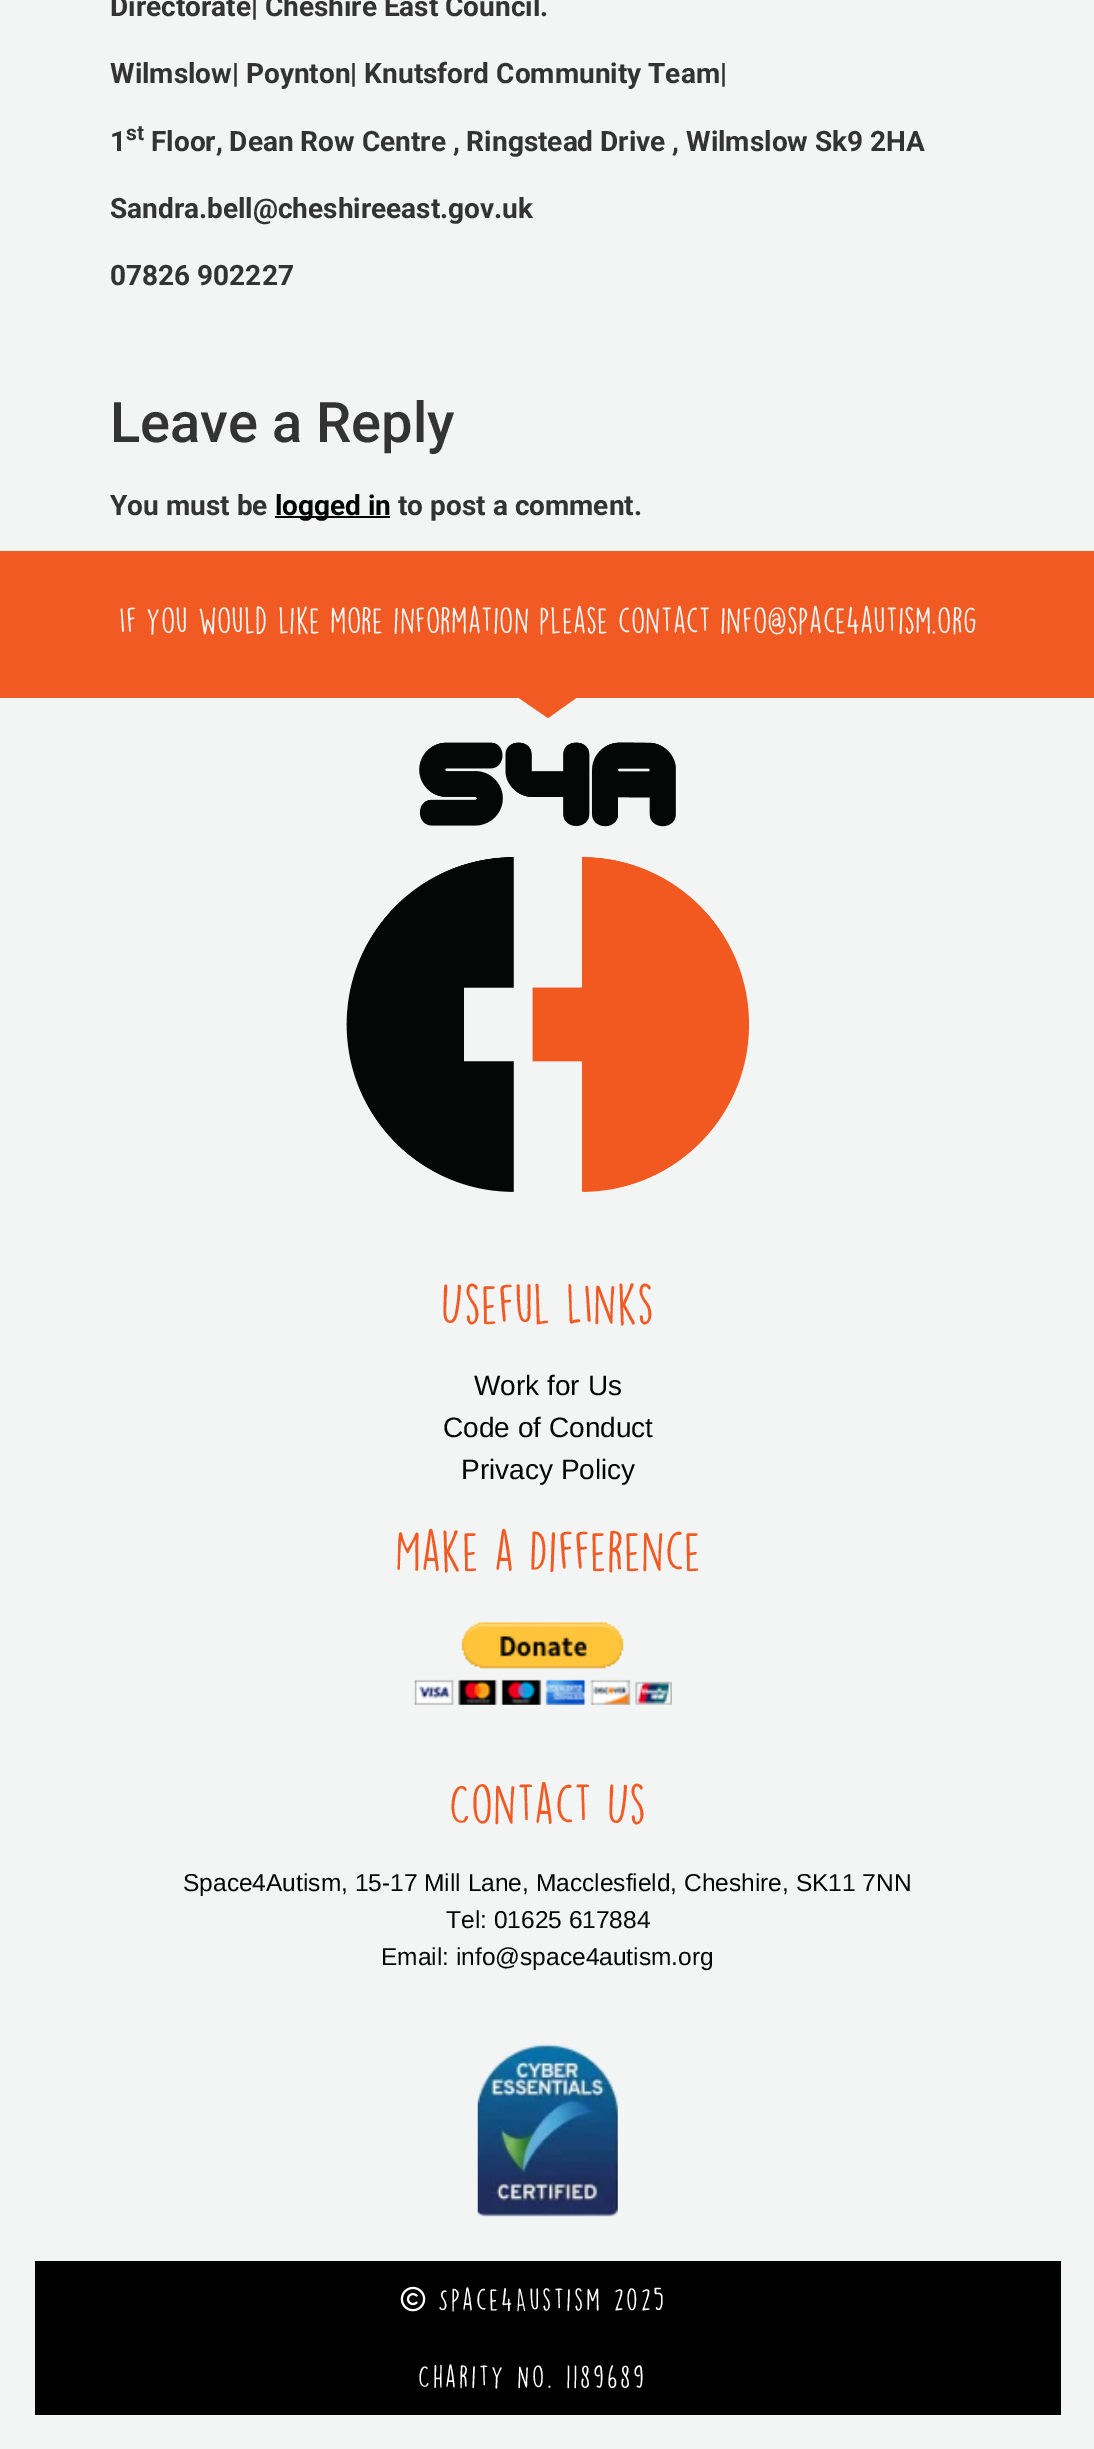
%!PS
<< /PageSize [1094 2449] >> setpagedevice
/rgb { 3 { 255 div 3 1 roll } repeat setrgbcolor } def
/font { [ exch dup neg 0 0 3 -1 roll 0 0 ] selectfont } def
/picture { 5 dict begin { /h /w /y /x /name } { exch def } forall
  gsave x y translate w h scale
  w h 8 [w 0 0 h 0 0] name (r) file false 3 colorimage grestore end } def
0 2449 translate 1 -1 scale
4 setmiterlimit
243 244 244 rgb
0 0 1094 2449 rectfill
5 5 5 rgb
275 516 115 2 rectfill
241 90 34 rgb
0 551 1094 147 rectfill
gsave
0 697 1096 21 rectclip
548 718 moveto 516 696 lineto 579 696 lineto closepath fill
grestore
(img/1.rgb) 346 742 403 450 picture
(img/2.rgb) 414 1622 258 83 picture
(img/3.rgb) 477 2043 141 174 picture
0 0 0 rgb
35 2261 1026 154 rectfill
(img/4.rgb) 400 2286 26 26 picture
/Roboto-Bold 28 font
51 51 51 rgb
[
  [(Directorate| Cheshire East Council.) 110 16]
  [(Wilmslow| Poynton| Knutsford Community Team|) 110 83]
  [(1) 110 151]
] { aload pop moveto show } forall
/Roboto-Bold 21 font
126 140 moveto (st) show
/Roboto-Bold 28 font
[
  [(Floor, Dean Row Centre , Ringstead Drive , Wilmslow Sk9 2HA) 151 151]
  [(Sandra.bell@cheshireeast.gov.uk) 110 218]
  [(07826 902227) 110 285]
] { aload pop moveto show } forall
/Roboto-Medium 56 font
110 442 moveto (Leave a Reply) show
/Roboto-Bold 28 font
110 515 moveto (You must be) show
5 5 5 rgb
275 515 moveto (logged in) show
51 51 51 rgb
398 515 moveto (to post a comment.) show
/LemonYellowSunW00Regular-Regular 33.25 font
243 244 244 rgb
119 634 moveto (If you would like more information please contact info@space4autism.org) show
/LemonYellowSunW00Regular-Regular 50.75 font
241 90 34 rgb
441 1325 moveto (Useful LInks) show
/LiberationSans-Regular 28 font
5 5 5 rgb
[
  [(Work for Us) 474 1395]
  [(Code of Conduct) 443 1437]
  [(Privacy Policy) 461 1479]
] { aload pop moveto show } forall
/LemonYellowSunW00Regular-Regular 50.75 font
241 90 34 rgb
395 1572 moveto (Make a Difference) show
449 1825 moveto (Contact Us) show
/LiberationSans-Regular 24.5 font
5 5 5 rgb
[
  [(Space4Autism, 15-17 Mill Lane, Macclesfield, Cheshire, SK11 7NN) 183 1891]
  [(Tel: 01625 617884) 446 1928]
  [(Email: info@space4autism.org) 381 1965]
] { aload pop moveto show } forall
/LemonYellowSunW00Regular-Regular 28 font
255 255 255 rgb
438 2311 moveto 2.6 0 (Space4Austism 2025) ashow
418 2388 moveto 2.6 0 (Charity No. 1189689) ashow
showpage
